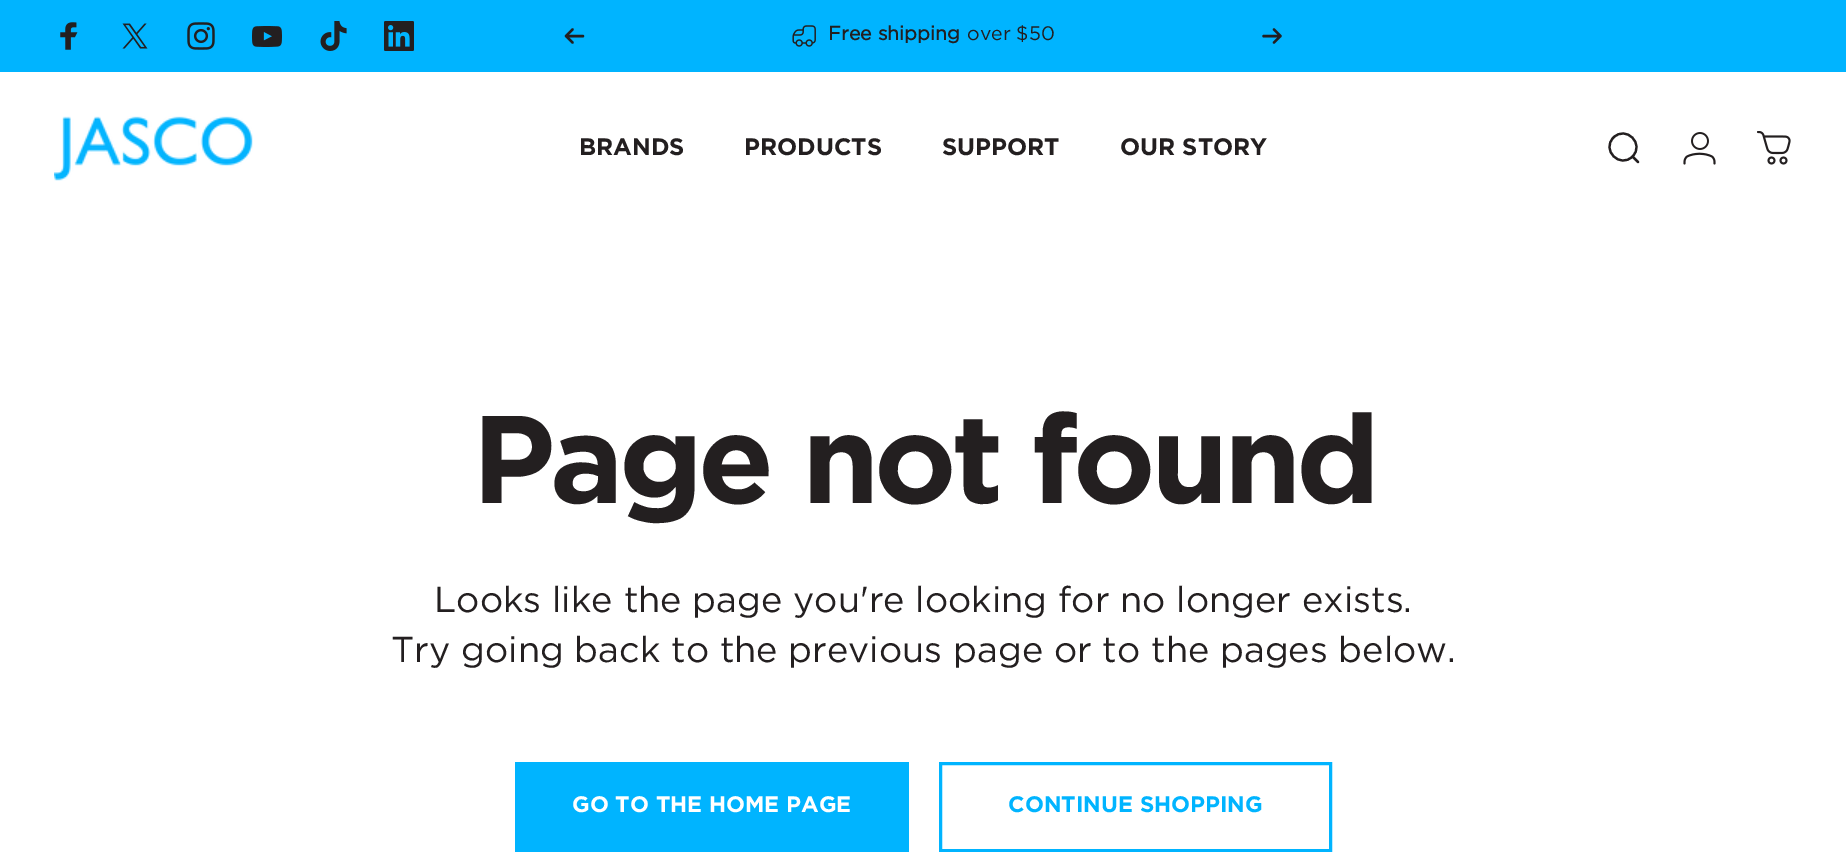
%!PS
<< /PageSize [1846 852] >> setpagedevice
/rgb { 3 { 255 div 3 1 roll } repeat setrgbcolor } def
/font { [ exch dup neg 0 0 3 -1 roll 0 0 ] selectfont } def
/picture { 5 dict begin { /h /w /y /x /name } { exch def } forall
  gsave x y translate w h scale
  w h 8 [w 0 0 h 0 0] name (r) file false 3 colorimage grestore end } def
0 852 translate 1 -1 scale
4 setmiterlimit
255 255 255 rgb
0 0 1846 852 rectfill
0 180 255 rgb
0 0 1846 72 rectfill
(img/1.rgb) 60 22 18 28 picture
(img/2.rgb) 122 23 26 26 picture
(img/3.rgb) 187 22 28 28 picture
(img/4.rgb) 252 26 30 21 picture
(img/5.rgb) 320 21 27 30 picture
(img/6.rgb) 384 21 30 30 picture
35 31 32 rgb
2.4 setlinewidth
1 setlinecap
1 setlinejoin
572.5 29.5 moveto 566 36 lineto 566 36 moveto 572.5 42.5 lineto 566 36 moveto 583 36 lineto stroke
(img/7.rgb) 792 25 24 22 picture
1263.5 36 moveto 1280.5 36 lineto 1280.5 36 moveto 1274 29.5 lineto 1280.5 36 moveto 1274 42.5 lineto stroke
(img/8.rgb) 54 116 199 65 picture
2.2 setlinewidth
0 setlinejoin
1638 162 moveto 1632.5 156.5 lineto 1632.5 156.5 moveto 1645 144 1626 125 1613.5 137.5 curveto 1601 150 1620 169 1632.5 156.5 curveto closepath stroke
(img/9.rgb) 1683 132 33 33 picture
(img/10.rgb) 1757 131 34 34 picture
0 180 255 rgb
515 762 394 90 rectfill
3 setlinewidth
0 setlinecap
940.5 763.5 390 87 rectstroke
/Gotham-Bold 19.5 font
35 31 32 rgb
828 40 moveto (Free shipping) show
/Gotham-Regular 19.5 font
967 40 moveto (over $50) show
/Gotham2-Bold 23.75 font
[
  [(BRANDS) 579 155]
  [(PRODUCTS) 744 155]
  [(SUPPORT) 942 155]
  [(OUR STORY) 1120 155]
] { aload pop moveto show } forall
/Gotham2-Bold 124.5 font
472 503 moveto -5 0 (Page not found) ashow
/Gotham-Regular 36 font
434 612 moveto (Looks like the page you're looking for no longer exists.) show
391 662 moveto (Try going back to the previous page or to the pages below.) show
/Gotham2-Bold 22.4 font
255 255 255 rgb
572 812 moveto (GO TO THE HOME PAGE) show
0 180 255 rgb
1008 812 moveto (CONTINUE SHOPPING) show
showpage
